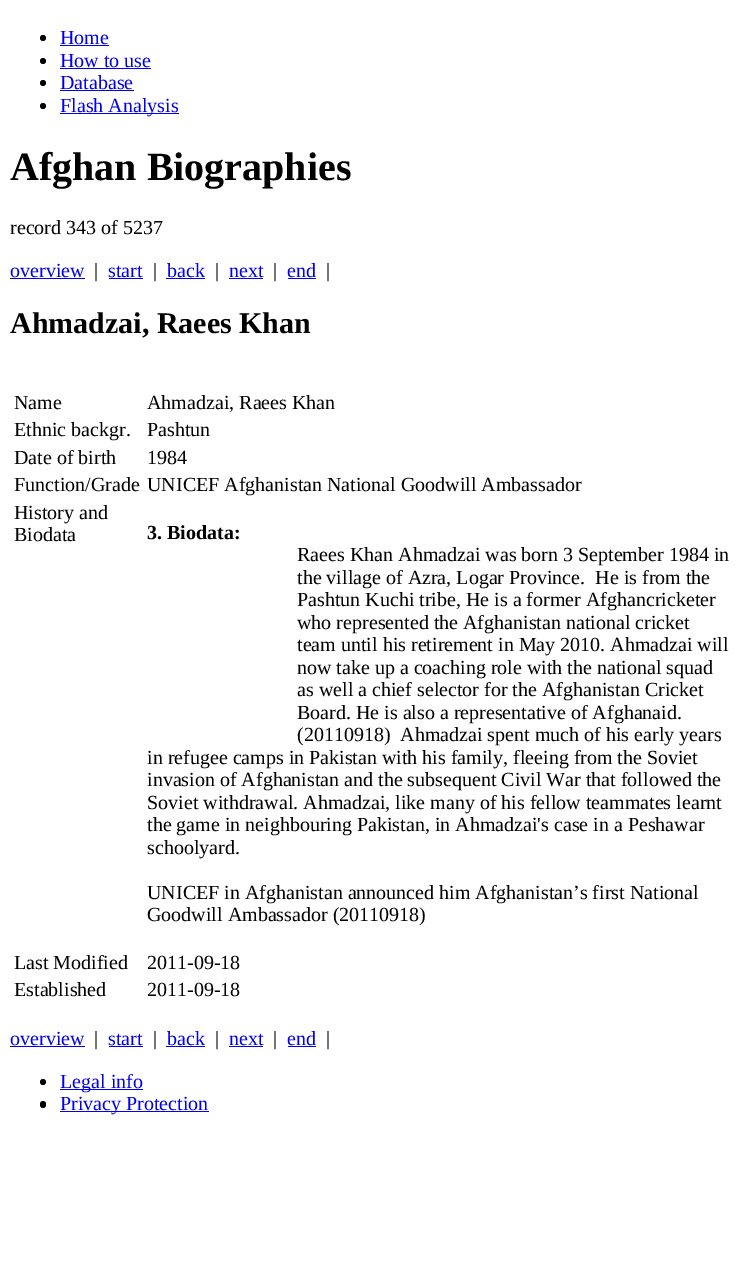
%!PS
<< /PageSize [743 1268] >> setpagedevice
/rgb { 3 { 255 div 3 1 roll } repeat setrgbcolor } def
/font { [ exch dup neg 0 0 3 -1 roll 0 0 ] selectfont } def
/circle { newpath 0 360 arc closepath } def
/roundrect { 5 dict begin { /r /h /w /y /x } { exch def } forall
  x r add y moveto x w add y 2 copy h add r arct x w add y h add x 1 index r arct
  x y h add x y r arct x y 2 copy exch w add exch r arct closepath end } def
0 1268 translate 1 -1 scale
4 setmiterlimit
255 255 255 rgb
0 0 743 1268 rectfill
0 0 0 rgb
43 38 3 circle fill
0 0 238 rgb
60 45 49 1 rectfill
0 0 0 rgb
43 61 3 circle fill
0 0 238 rgb
60 68 91 1 rectfill
0 0 0 rgb
43 83 3 circle fill
0 0 238 rgb
60 90 74 1 rectfill
0 0 0 rgb
43 106 3 circle fill
[
  [60 113 119 1 0 0 238]
  [10 278 75 1 0 0 238]
  [109 278 34 1 0 0 238]
  [166 278 39 1 0 0 238]
  [229 278 34 1 0 0 238]
  [288 278 28 1 0 0 238]
  [10 1046 75 1 0 0 238]
  [109 1046 34 1 0 0 238]
  [166 1046 39 1 0 0 238]
  [229 1046 34 1 0 0 238]
  [288 1046 28 1 0 0 238]
] { aload pop rgb rectfill } forall
0 0 0 rgb
43 1082 3 circle fill
0 0 238 rgb
60 1089 83 1 rectfill
0 0 0 rgb
40 1101 6 7 3 roundrect fill
0 0 238 rgb
60 1111 149 1 rectfill
/LiberationSerif-Regular 20 font
[
  [(Home) 60 44]
  [(How to use) 60 67]
  [(Database) 60 89]
  [(Flash Analysis) 60 112]
] { aload pop moveto show } forall
/LiberationSerif-Bold 40 font
0 0 0 rgb
10 180 moveto (Afghan Biographies) show
/LiberationSerif-Regular 20 font
10 234 moveto (record 343 of 5237) show
0 0 238 rgb
10 277 moveto (overview) show
0 0 0 rgb
94 277 moveto (|) show
0 0 238 rgb
108 277 moveto (start) show
0 0 0 rgb
153 277 moveto (|) show
0 0 238 rgb
167 277 moveto (back) show
0 0 0 rgb
215 277 moveto (|) show
0 0 238 rgb
229 277 moveto (next) show
0 0 0 rgb
273 277 moveto (|) show
0 0 238 rgb
287 277 moveto (end) show
0 0 0 rgb
326 277 moveto (|) show
/LiberationSerif-Bold 30 font
10 333 moveto (Ahmadzai, Raees Khan) show
/LiberationSerif-Regular 20 font
[
  [(Name) 14 409]
  [(Ahmadzai, Raees Khan) 147 409]
  [(Ethnic backgr.) 14 436]
  [(Pashtun) 147 436]
  [(Date of birth) 14 464]
  [(1984) 147 464]
  [(Function/Grade) 14 491]
  [(UNICEF Afghanistan National Goodwill Ambassador) 147 491]
  [(History and) 14 519]
  [(Biodata) 14 541]
] { aload pop moveto show } forall
/LiberationSerif-Bold 20 font
147 539 moveto (3. Biodata:) show
/LiberationSerif-Regular 20 font
[
  [(Raees Khan Ahmadzai was born 3 September 1984 in) 297 561]
  [(the village of Azra, Logar Province.  He is from the) 297 584]
  [(Pashtun Kuchi tribe, He is a former Afghancricketer) 297 606]
  [(who represented the Afghanistan national cricket) 297 629]
  [(team until his retirement in May 2010. Ahmadzai will) 297 651]
  [(now take up a coaching role with the national squad) 297 674]
  [(as well a chief selector for the Afghanistan Cricket) 297 696]
  [(Board. He is also a representative of Afghanaid.) 297 719]
  [(\(20110918\)  Ahmadzai spent much of his early years) 297 741]
  [(in refugee camps in Pakistan with his family, fleeing from the Soviet) 147 764]
  [(invasion of Afghanistan and the subsequent Civil War that followed the) 147 786]
  [(Soviet withdrawal. Ahmadzai, like many of his fellow teammates learnt) 147 809]
  [(the game in neighbouring Pakistan, in Ahmadzai's case in a Peshawar) 147 831]
  [(schoolyard.) 147 854]
  [(UNICEF in Afghanistan announced him Afghanistan’s first National) 147 899]
  [(Goodwill Ambassador \(20110918\)) 147 921]
  [(Last Modified) 14 969]
  [(2011-09-18) 147 969]
  [(Established) 14 996]
  [(2011-09-18) 147 996]
] { aload pop moveto show } forall
0 0 238 rgb
10 1045 moveto (overview) show
0 0 0 rgb
94 1045 moveto (|) show
0 0 238 rgb
108 1045 moveto (start) show
0 0 0 rgb
153 1045 moveto (|) show
0 0 238 rgb
167 1045 moveto (back) show
0 0 0 rgb
215 1045 moveto (|) show
0 0 238 rgb
229 1045 moveto (next) show
0 0 0 rgb
273 1045 moveto (|) show
0 0 238 rgb
287 1045 moveto (end) show
0 0 0 rgb
326 1045 moveto (|) show
0 0 238 rgb
60 1088 moveto (Legal info) show
60 1110 moveto (Privacy Protection) show
showpage
